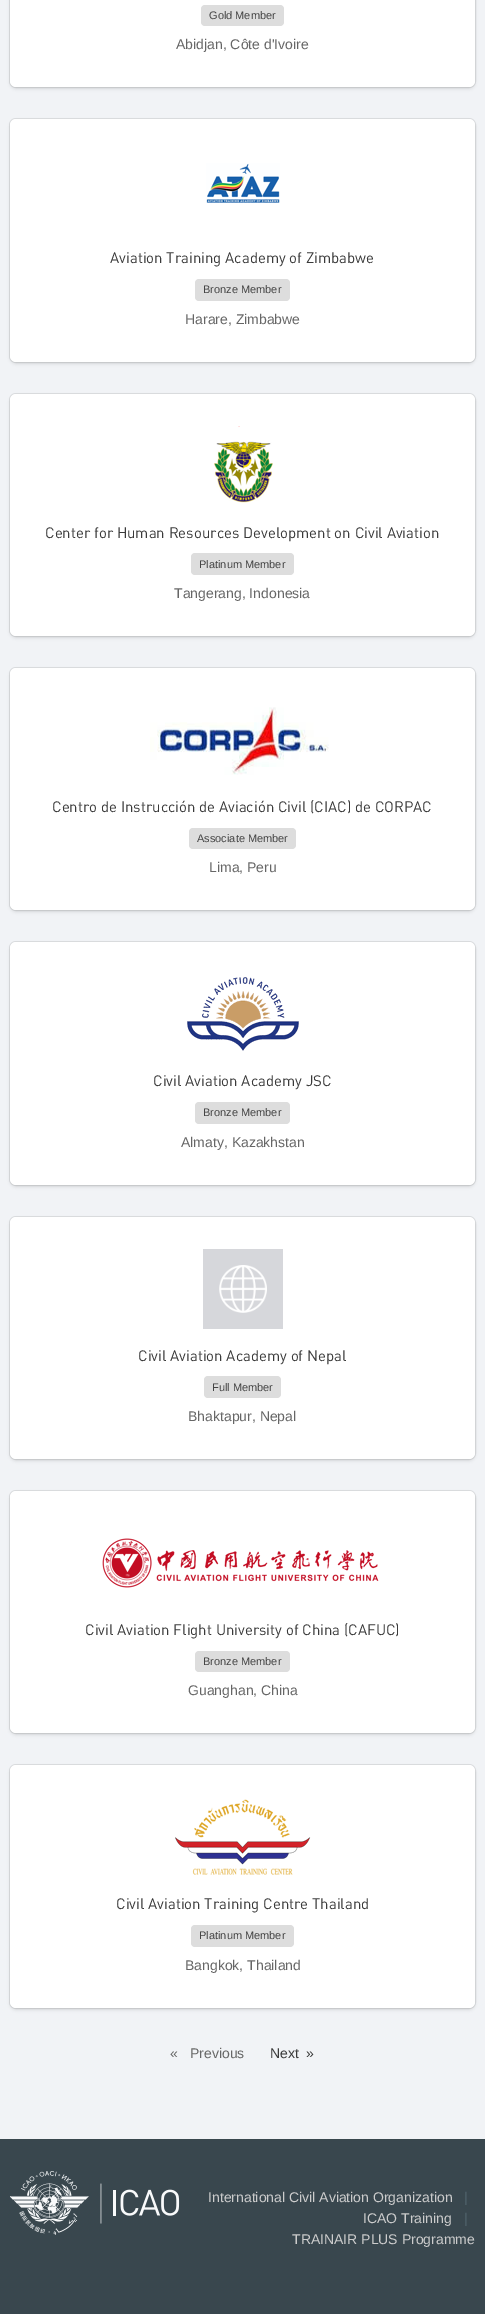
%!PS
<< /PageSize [485 2314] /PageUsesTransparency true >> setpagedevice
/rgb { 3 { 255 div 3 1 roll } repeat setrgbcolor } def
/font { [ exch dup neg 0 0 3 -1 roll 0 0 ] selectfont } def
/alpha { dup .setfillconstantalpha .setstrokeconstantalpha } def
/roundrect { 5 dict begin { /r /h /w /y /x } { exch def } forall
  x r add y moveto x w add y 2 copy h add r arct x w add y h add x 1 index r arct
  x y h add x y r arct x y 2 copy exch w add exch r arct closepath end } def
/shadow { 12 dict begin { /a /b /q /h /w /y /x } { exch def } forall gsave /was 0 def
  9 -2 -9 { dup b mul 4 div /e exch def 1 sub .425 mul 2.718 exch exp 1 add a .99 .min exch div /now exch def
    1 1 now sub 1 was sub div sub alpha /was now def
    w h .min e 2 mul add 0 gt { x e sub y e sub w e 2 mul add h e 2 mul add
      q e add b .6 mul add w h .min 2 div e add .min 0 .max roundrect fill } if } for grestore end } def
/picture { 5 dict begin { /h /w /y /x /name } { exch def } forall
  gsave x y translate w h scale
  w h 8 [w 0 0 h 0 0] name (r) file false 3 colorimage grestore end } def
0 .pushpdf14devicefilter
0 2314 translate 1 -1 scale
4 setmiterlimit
57 71 78 rgb
0 0 485 2314 rectfill
241 243 246 rgb
0 0 485 2139 rectfill
219 221 223 rgb
9.5 -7.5 466 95 6.5 roundrect stroke
20 20 20 rgb
10 -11 465 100 6 1.5 0.1 shadow
255 255 255 rgb
10 -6 465 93 6 roundrect fill
221 221 221 rgb
201 5 83 21 4 roundrect fill
219 221 223 rgb
9.5 118.5 466 244 6.5 roundrect stroke
20 20 20 rgb
10 121 465 243 6 1.5 0.1 shadow
255 255 255 rgb
10 119 465 243 6 roundrect fill
(img/1.rgb) 206 163 74 40 picture
221 221 221 rgb
195 279 95 22 4 roundrect fill
219 221 223 rgb
9.5 393.5 466 243 6.5 roundrect stroke
20 20 20 rgb
10 396 465 242 6 1.5 0.1 shadow
255 255 255 rgb
10 394 465 242 6 roundrect fill
(img/2.rgb) 214 426 59 77 picture
221 221 221 rgb
191 553 103 22 4 roundrect fill
219 221 223 rgb
9.5 667.5 466 243 6.5 roundrect stroke
20 20 20 rgb
10 670 465 242 6 1.5 0.1 shadow
255 255 255 rgb
10 668 465 242 6 roundrect fill
(img/3.rgb) 150 707 179 68 picture
221 221 221 rgb
189 828 107 21 4 roundrect fill
219 221 223 rgb
9.5 941.5 466 244 6.5 roundrect stroke
20 20 20 rgb
10 944 465 243 6 1.5 0.1 shadow
255 255 255 rgb
10 942 465 243 6 roundrect fill
(img/4.rgb) 187 977 112 74 picture
221 221 221 rgb
195 1102 95 22 4 roundrect fill
219 221 223 rgb
9.5 1216.5 466 243 6.5 roundrect stroke
20 20 20 rgb
10 1219 465 242 6 1.5 0.1 shadow
255 255 255 rgb
10 1217 465 242 6 roundrect fill
(img/5.rgb) 203 1249 80 80 picture
221 221 221 rgb
204 1376 77 22 4 roundrect fill
219 221 223 rgb
9.5 1490.5 466 243 6.5 roundrect stroke
20 20 20 rgb
10 1493 465 242 6 1.5 0.1 shadow
255 255 255 rgb
10 1491 465 242 6 roundrect fill
(img/6.rgb) 102 1538 277 50 picture
221 221 221 rgb
195 1651 95 21 4 roundrect fill
219 221 223 rgb
9.5 1764.5 466 244 6.5 roundrect stroke
20 20 20 rgb
10 1767 465 243 6 1.5 0.1 shadow
255 255 255 rgb
10 1765 465 243 6 roundrect fill
(img/7.rgb) 175 1799 136 76 picture
221 221 221 rgb
191 1925 103 22 4 roundrect fill
(img/8.rgb) 10 2171 170 64 picture
/LiberationSans-Regular 11 font
68 68 68 rgb
209 19 moveto (Gold Member) show
/LiberationSans-Regular 14 font
102 102 102 rgb
176 49 moveto (Abidjan, Côte d'Ivoire) show
/DIN-Regular 15 font
58 58 58 rgb
110 263 moveto (Aviation Training Academy of Zimbabwe) show
/LiberationSans-Regular 11 font
68 68 68 rgb
203 293 moveto (Bronze Member) show
/LiberationSans-Regular 14 font
102 102 102 rgb
185 324 moveto (Harare, Zimbabwe) show
/DIN-Regular 15 font
58 58 58 rgb
45 538 moveto (Center for Human Resources Development on Civil Aviation) show
/LiberationSans-Regular 11 font
68 68 68 rgb
199 568 moveto (Platinum Member) show
/LiberationSans-Regular 14 font
102 102 102 rgb
174 598 moveto (Tangerang, Indonesia) show
/DIN-Regular 15 font
58 58 58 rgb
52 812 moveto (Centro de Instrucción de Aviación Civil \(CIAC\) de CORPAC) show
/LiberationSans-Regular 11 font
68 68 68 rgb
197 842 moveto (Associate Member) show
/LiberationSans-Regular 14 font
102 102 102 rgb
209 872 moveto (Lima, Peru) show
/DIN-Regular 15 font
58 58 58 rgb
153 1086 moveto (Civil Aviation Academy JSC) show
/LiberationSans-Regular 11 font
68 68 68 rgb
203 1116 moveto (Bronze Member) show
/LiberationSans-Regular 14 font
102 102 102 rgb
181 1147 moveto (Almaty, Kazakhstan) show
/DIN-Regular 15 font
58 58 58 rgb
138 1361 moveto (Civil Aviation Academy of Nepal) show
/LiberationSans-Regular 11 font
68 68 68 rgb
212 1391 moveto (Full Member) show
/LiberationSans-Regular 14 font
102 102 102 rgb
188 1421 moveto (Bhaktapur, Nepal) show
/DIN-Regular 15 font
58 58 58 rgb
85 1635 moveto (Civil Aviation Flight University of China \(CAFUC\)) show
/LiberationSans-Regular 11 font
68 68 68 rgb
203 1665 moveto (Bronze Member) show
/LiberationSans-Regular 14 font
102 102 102 rgb
188 1695 moveto (Guanghan, China) show
/DIN-Regular 15 font
58 58 58 rgb
116 1909 moveto (Civil Aviation Training Centre Thailand) show
/LiberationSans-Regular 11 font
68 68 68 rgb
199 1939 moveto (Platinum Member) show
/LiberationSans-Regular 14 font
102 102 102 rgb
[
  [(Bangkok, Thailand) 185 1970]
  [(«) 170 2058]
  [(Previous) 190 2058]
] { aload pop moveto show } forall
58 58 58 rgb
270 2058 moveto (Next) show
306 2058 moveto (») show
204 204 204 rgb
208 2202 moveto (International Civil Aviation Organization) show
79 98 107 rgb
464 2202 moveto (|) show
204 204 204 rgb
363 2223 moveto (ICAO Training) show
79 98 107 rgb
464 2223 moveto (|) show
204 204 204 rgb
292 2244 moveto (TRAINAIR PLUS Programme) show
.poppdf14devicefilter showpage
